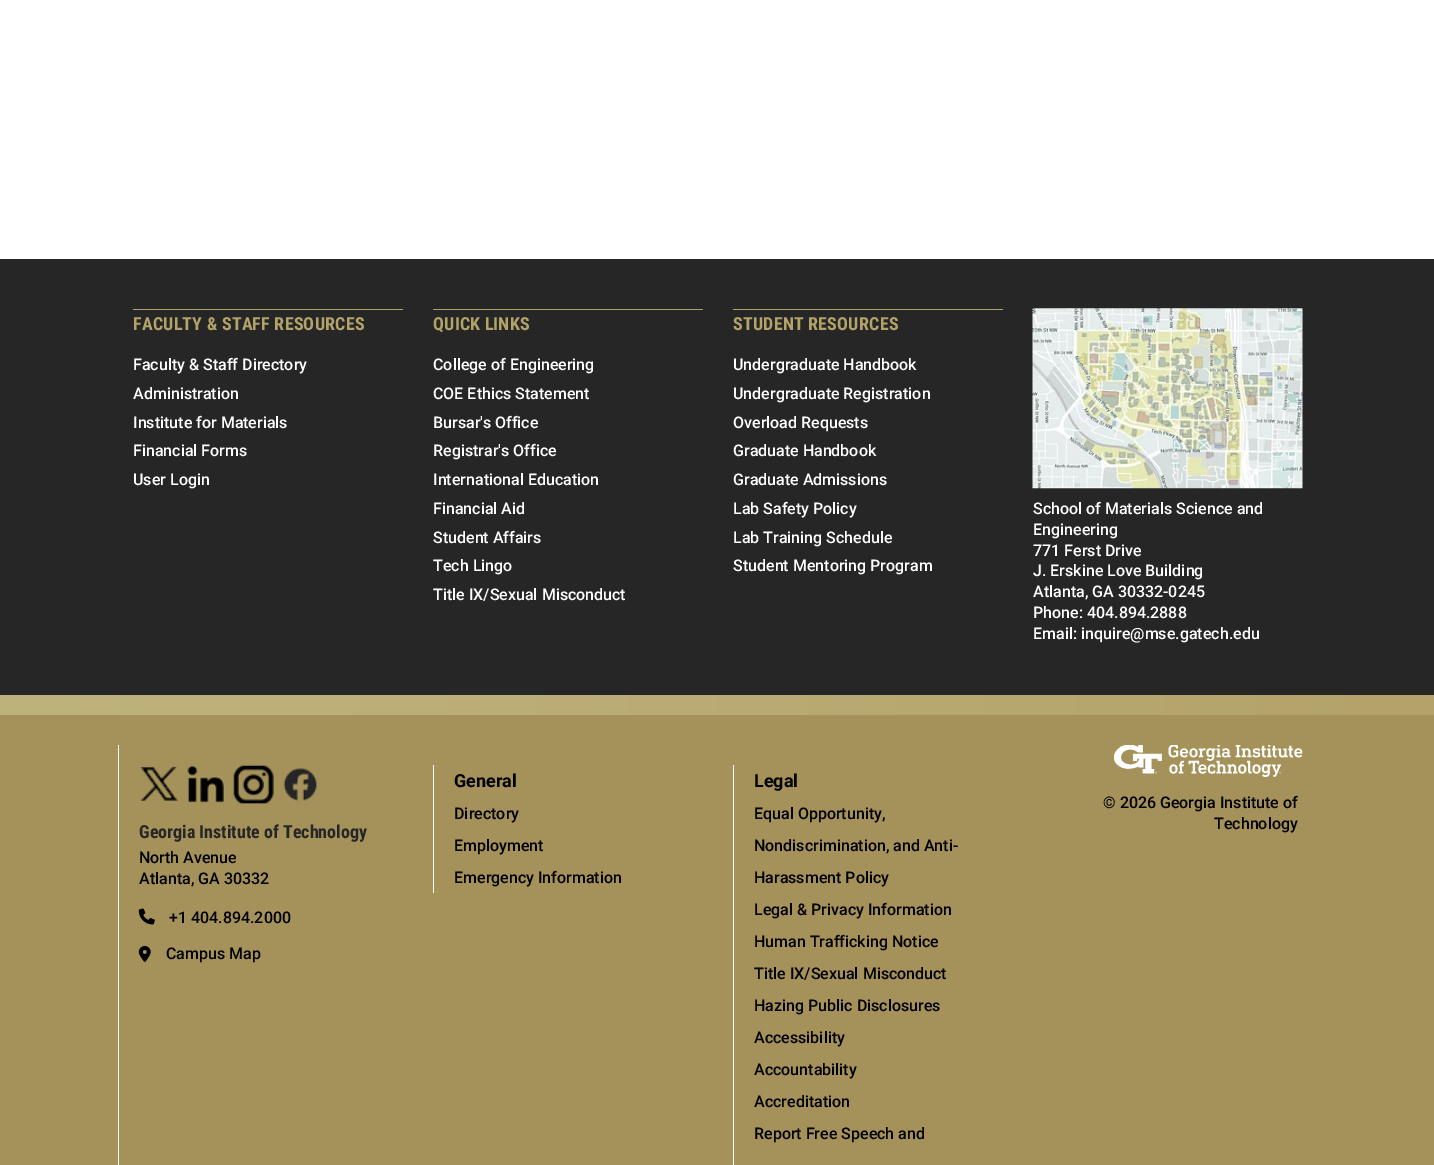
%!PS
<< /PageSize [1434 1165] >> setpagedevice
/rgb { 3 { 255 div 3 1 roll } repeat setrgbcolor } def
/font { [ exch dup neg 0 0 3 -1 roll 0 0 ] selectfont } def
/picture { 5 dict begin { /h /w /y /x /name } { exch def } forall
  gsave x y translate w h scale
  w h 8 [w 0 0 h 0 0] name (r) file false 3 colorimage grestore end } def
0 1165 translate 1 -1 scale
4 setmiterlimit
255 255 255 rgb
0 0 1434 1165 rectfill
[
  [0 259 1434 436 38 38 38]
  [133 309 270 1 179 163 105]
  [433 309 270 1 179 163 105]
  [733 309 270 1 179 163 105]
] { aload pop rgb rectfill } forall
(img/1.rgb) 1032 308 271 181 picture
gsave 0 695 moveto 1434 695 lineto 1434 715 lineto 0 715 lineto closepath clip newpath
<< /ShadingType 2 /ColorSpace /DeviceRGB /Coords [0 705 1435 705] /Extend [true true] /Function << /FunctionType 2 /Domain [0 1] /C0 [0.749 0.702 0.486] /C1 [0.702 0.639 0.412] /N 1 >> >> shfill grestore
[
  [0 715 1434 450 164 146 90]
  [433 765 1 128 255 255 255]
  [733 765 1 400 255 255 255]
] { aload pop rgb rectfill } forall
(img/2.rgb) 1114 745 189 32 picture
118 745 1 420 rectfill
(img/3.rgb) 140 766 38 35 picture
(img/4.rgb) 186 764 39 39 picture
(img/5.rgb) 233 765 41 39 picture
(img/6.rgb) 283 768 35 33 picture
(img/7.rgb) 138 908 17 17 picture
(img/8.rgb) 138 946 13 16 picture
/RobotoCondensed-Bold 18 font
179 163 105 rgb
133 330 moveto 0.2 0 (FACULTY & STAFF RESOURCES) ashow
/Roboto-Medium 16 font
255 255 255 rgb
[
  [(Faculty & Staff Directory) 133 370]
  [(Administration) 133 399]
  [(Institute for Materials) 133 428]
  [(Financial Forms) 133 456]
  [(User Login) 133 485]
] { aload pop moveto show } forall
/RobotoCondensed-Bold 18 font
179 163 105 rgb
433 330 moveto 0.2 0 (QUICK LINKS) ashow
/Roboto-Medium 16 font
255 255 255 rgb
[
  [(College of Engineering) 433 370]
  [(COE Ethics Statement) 433 399]
  [(Bursar's Office) 433 428]
  [(Registrar's Office) 433 456]
  [(International Education) 433 485]
  [(Financial Aid) 433 514]
  [(Student Affairs) 433 543]
  [(Tech Lingo) 433 571]
  [(Title IX/Sexual Misconduct) 433 600]
] { aload pop moveto show } forall
/RobotoCondensed-Bold 18 font
179 163 105 rgb
733 330 moveto 0.2 0 (STUDENT RESOURCES) ashow
/Roboto-Medium 16 font
255 255 255 rgb
[
  [(Undergraduate Handbook) 733 370]
  [(Undergraduate Registration) 733 399]
  [(Overload Requests) 733 428]
  [(Graduate Handbook) 733 456]
  [(Graduate Admissions) 733 485]
  [(Lab Safety Policy) 733 514]
  [(Lab Training Schedule) 733 543]
  [(Student Mentoring Program) 733 571]
  [(School of Materials Science and) 1033 514]
  [(Engineering) 1033 535]
  [(771 Ferst Drive) 1033 556]
  [(J. Erskine Love Building) 1033 576]
  [(Atlanta, GA 30332-0245) 1033 597]
  [(Phone: 404.894.2888) 1033 618]
  [(Email: inquire@mse.gatech.edu) 1033 639]
] { aload pop moveto show } forall
/Roboto-Bold 18 font
0 0 0 rgb
454 787 moveto (General) show
/Roboto-Medium 16 font
[
  [(Directory) 454 819]
  [(Employment) 454 851]
  [(Emergency Information) 454 883]
] { aload pop moveto show } forall
/Roboto-Bold 18 font
754 787 moveto (Legal) show
/Roboto-Medium 16 font
[
  [(Equal Opportunity,) 754 819]
  [(Nondiscrimination, and Anti-) 754 851]
  [(Harassment Policy) 754 883]
  [(Legal & Privacy Information) 754 915]
  [(Human Trafficking Notice) 754 947]
  [(Title IX/Sexual Misconduct) 754 979]
  [(Hazing Public Disclosures) 754 1011]
  [(Accessibility) 754 1043]
  [(Accountability) 754 1075]
  [(Accreditation) 754 1107]
  [(Report Free Speech and) 754 1139]
  [(© 2026 Georgia Institute of) 1103 808]
  [(Technology) 1214 829]
] { aload pop moveto show } forall
/RobotoCondensed-Bold 18 font
38 38 38 rgb
139 838 moveto (Georgia Institute of Technology) show
/Roboto-Medium 16 font
0 0 0 rgb
[
  [(North Avenue) 139 863]
  [(Atlanta, GA 30332) 139 884]
  [(+1 404.894.2000) 169 923]
  [(Campus Map) 166 959]
] { aload pop moveto show } forall
showpage
